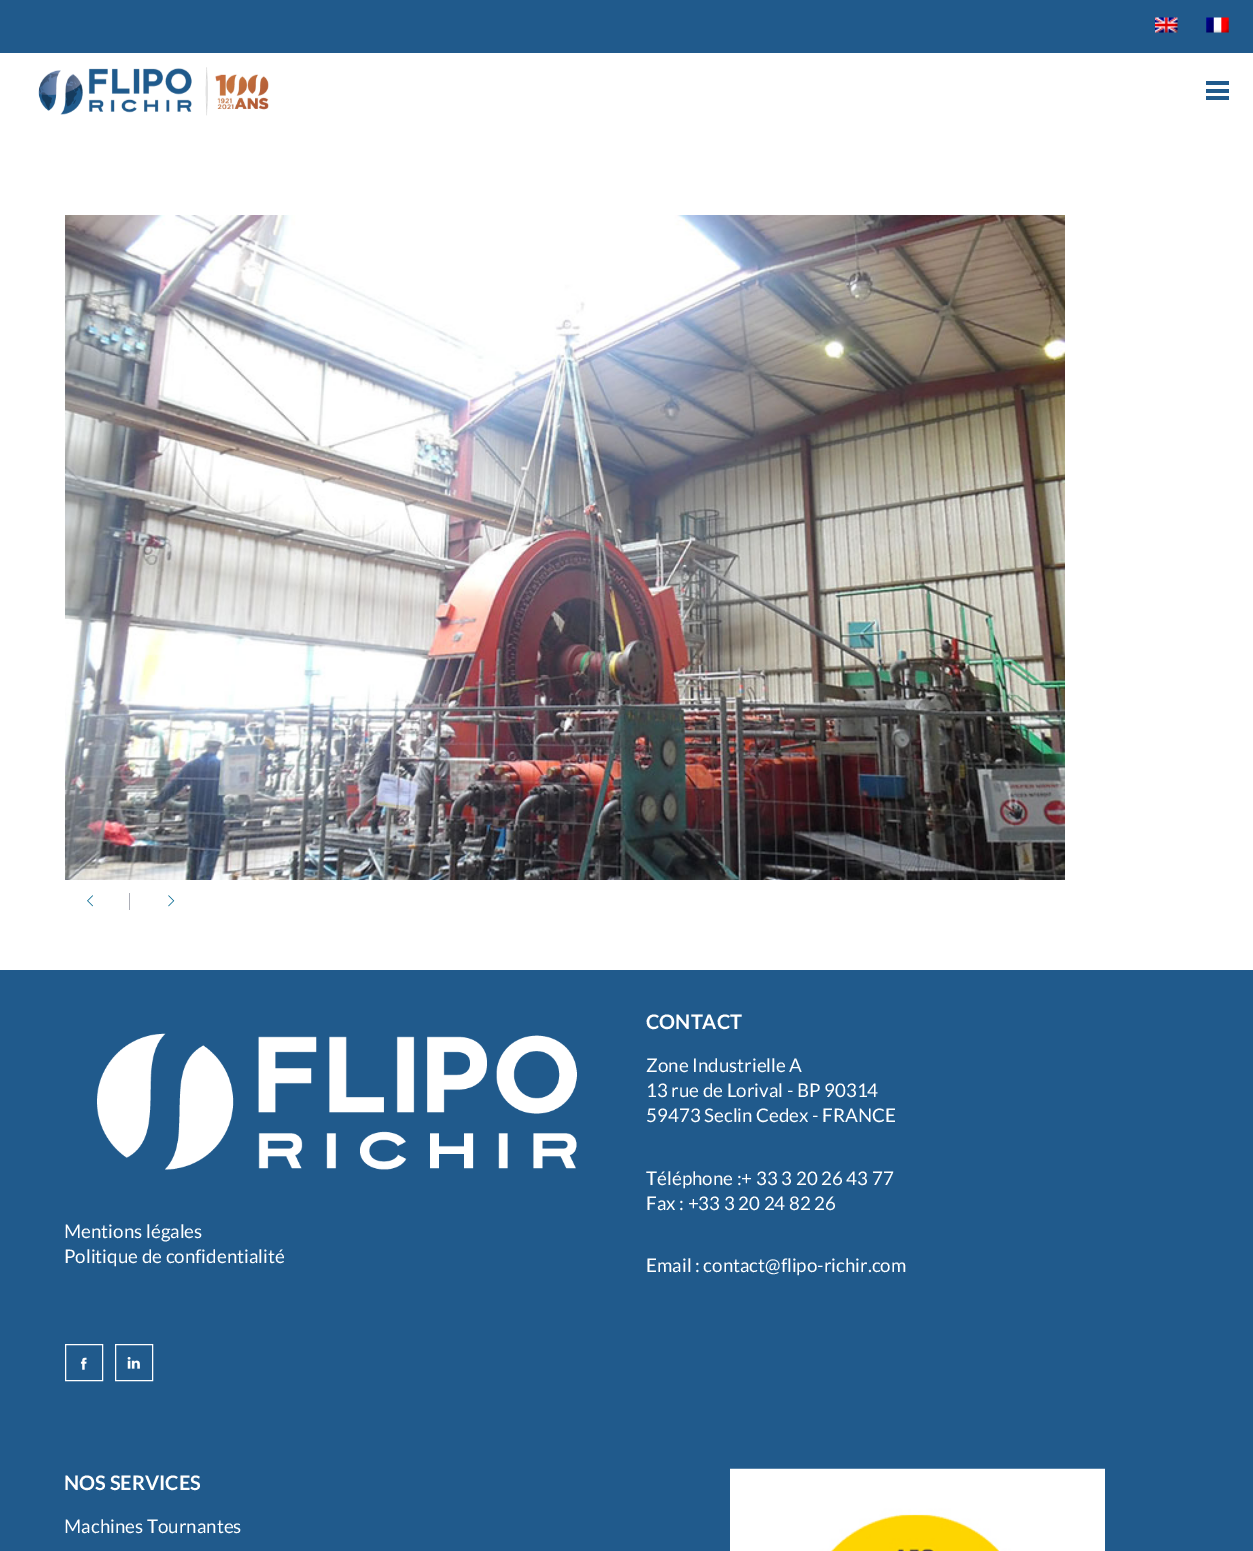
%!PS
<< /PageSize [1253 1551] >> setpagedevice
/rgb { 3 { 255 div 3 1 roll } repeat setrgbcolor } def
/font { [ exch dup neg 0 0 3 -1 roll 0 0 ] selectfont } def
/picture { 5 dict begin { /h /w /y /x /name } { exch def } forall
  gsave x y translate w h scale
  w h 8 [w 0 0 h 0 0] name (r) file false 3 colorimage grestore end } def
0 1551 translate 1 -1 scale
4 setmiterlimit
255 255 255 rgb
0 0 1253 1551 rectfill
32 90 140 rgb
0 0 1253 53 rectfill
(img/1.rgb) 1155 17 23 16 picture
(img/2.rgb) 1206 17 23 16 picture
(img/3.rgb) 38 67 231 49 picture
[
  [1206 81 23 4 32 90 140]
  [1206 89 23 4 32 90 140]
  [1206 96 23 4 32 90 140]
] { aload pop rgb rectfill } forall
(img/4.rgb) 65 215 1000 665 picture
(img/5.rgb) 87 895 6 12 picture
172 174 183 rgb
129 893 1 17 rectfill
(img/6.rgb) 168 895 7 12 picture
32 90 140 rgb
0 970 1253 581 rectfill
(img/7.rgb) 97 1033 480 137 picture
255 255 255 rgb
65.5 1344.5 37 36 rectstroke
(img/8.rgb) 80 1357 7 13 picture
115.5 1344.5 37 36 rectstroke
(img/9.rgb) 127 1357 13 12 picture
(img/10.rgb) 730 1468 375 83 picture
/Lato-Regular 18.75 font
64 1238 moveto (Mentions légales) show
64 1263 moveto (Politique de confidentialité) show
/Lato-Bold 20 font
646 1029 moveto (CONTACT) show
/Lato-Regular 18.75 font
[
  [(Zone Industrielle A) 646 1072]
  [(13 rue de Lorival - BP 90314) 646 1097]
  [(59473 Seclin Cedex - FRANCE) 646 1122]
  [(Téléphone :+ 33 3 20 26 43 77) 646 1185]
  [(Fax : +33 3 20 24 82 26) 646 1210]
  [(Email : contact@flipo-richir.com) 646 1272]
] { aload pop moveto show } forall
/Lato-Bold 20 font
64 1490 moveto (NOS SERVICES) show
/Lato-Regular 18.75 font
64 1533 moveto (Machines Tournantes) show
showpage
